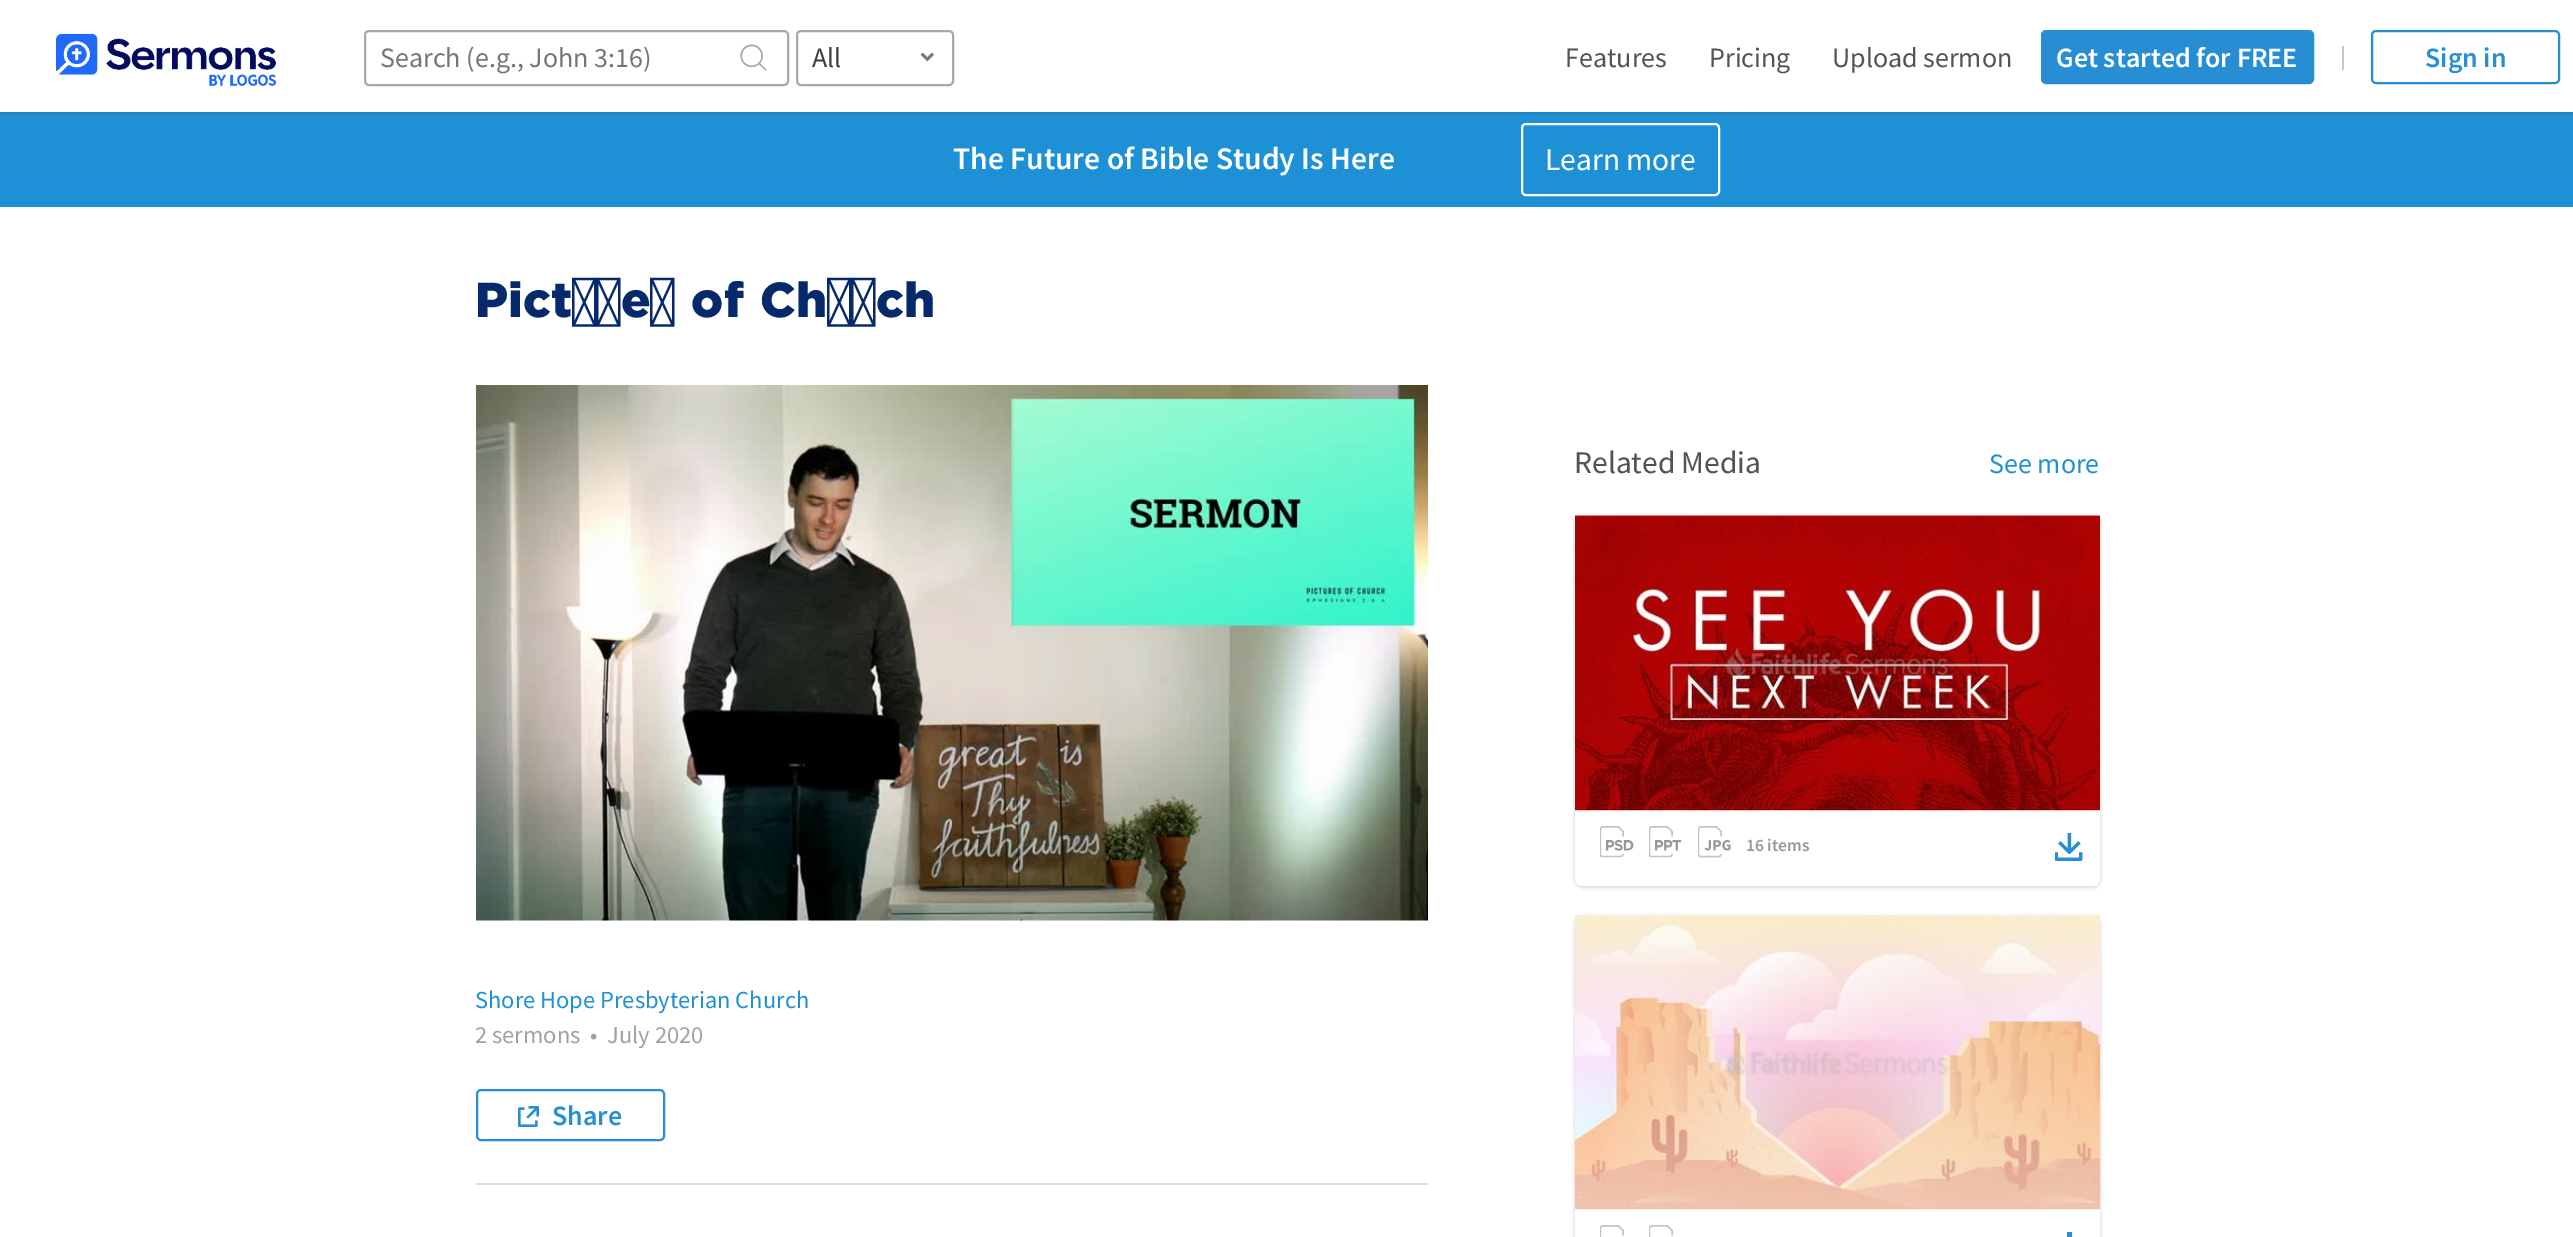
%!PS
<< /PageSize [2573 1237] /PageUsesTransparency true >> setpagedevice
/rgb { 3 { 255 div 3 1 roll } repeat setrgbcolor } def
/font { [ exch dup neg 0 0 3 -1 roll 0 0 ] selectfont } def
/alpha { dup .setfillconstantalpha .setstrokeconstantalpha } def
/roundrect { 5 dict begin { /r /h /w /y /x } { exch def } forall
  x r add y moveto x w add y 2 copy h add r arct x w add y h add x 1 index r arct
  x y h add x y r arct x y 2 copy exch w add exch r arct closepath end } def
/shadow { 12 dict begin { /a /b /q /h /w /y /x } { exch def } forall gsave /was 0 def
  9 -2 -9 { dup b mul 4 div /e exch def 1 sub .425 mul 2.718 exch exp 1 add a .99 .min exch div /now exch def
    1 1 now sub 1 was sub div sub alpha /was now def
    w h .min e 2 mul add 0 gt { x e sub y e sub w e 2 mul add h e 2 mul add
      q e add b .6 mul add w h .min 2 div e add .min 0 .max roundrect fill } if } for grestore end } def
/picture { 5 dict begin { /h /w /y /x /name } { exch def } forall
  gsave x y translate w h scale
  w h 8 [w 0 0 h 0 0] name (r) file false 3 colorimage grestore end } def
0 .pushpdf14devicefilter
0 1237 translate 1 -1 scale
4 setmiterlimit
255 255 255 rgb
0 0 2573 1237 rectfill
30 145 214 rgb
0 112 2573 95 rectfill
gsave
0 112 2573 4 rectclip
0 0 0 rgb
0 2 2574 112 0 2 0.1 shadow
grestore
255 255 255 rgb
2 setlinewidth
1522 124 197 71 4 roundrect stroke
gsave
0 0 moveto 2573 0 lineto 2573 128 lineto 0 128 lineto closepath 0 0 moveto 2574 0 lineto 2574 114 lineto 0 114 lineto closepath eoclip newpath
110 131 183 rgb
2 5 2571 111 0 3.5 0.2 shadow
grestore
(img/1.rgb) 56 33 220 54 picture
168 168 168 rgb
365 31 423 54 4 roundrect stroke
(img/2.rgb) 740 44 27 27 picture
797 31 156 54 4 roundrect stroke
(img/3.rgb) 920 52 14 10 picture
39 142 212 rgb
2042 31 271 52 4 roundrect gsave fill grestore
stroke
199 199 199 rgb
2342 46 2 24 rectfill
39 142 212 rgb
2372 31 187 52 4 roundrect stroke
0 0 0 rgb
1575 516 525 371 7 2 0.2 shadow
255 255 255 rgb
1575 515 moveto 2100 515 lineto 2100 879 lineto 2100 883 2097 886 2093 886 curveto 1582 886 lineto 1578 886 1575 883 1575 879 curveto closepath fill
238 238 238 rgb
1575 515 525 1 rectfill
(img/4.rgb) 1575 515 525 296 picture
(img/5.rgb) 1600 826 34 32 picture
(img/6.rgb) 1649 826 33 32 picture
(img/7.rgb) 1698 826 33 32 picture
(img/8.rgb) 2055 833 28 28 picture
0 0 0 rgb
1575 917 525 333 7 2 0.2 shadow
255 255 255 rgb
1575 915 525 322 rectfill
(img/9.rgb) 1575 915 525 295 picture
(img/10.rgb) 1600 1225 24 12 picture
(img/11.rgb) 1649 1225 24 12 picture
39 142 212 rgb
2067 1232 5 5 rectfill
(img/12.rgb) 476 385 952 536 picture
221 220 220 rgb
476 1183 952 2 rectfill
39 142 212 rgb
477 1090 187 50 4 roundrect stroke
(img/13.rgb) 518 1106 21 21 picture
/SourceSansPro-Regular 28 font
117 117 117 rgb
380 67 moveto (Search \(e.g., John 3:16\)) show
61 61 61 rgb
812 67 moveto (All) show
87 82 81 rgb
[
  [(Features) 1565 67]
  [(Pricing) 1709 67]
  [(Upload sermon) 1832 67]
] { aload pop moveto show } forall
/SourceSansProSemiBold-SemiBold 28 font
255 255 255 rgb
2056 67 moveto (Get started for FREE) show
39 142 212 rgb
2425 67 moveto (Sign in) show
/SourceSansProSemiBold-SemiBold 31.5 font
255 255 255 rgb
953 169 moveto (The Future of Bible Study Is Here) show
/SourceSansPro-Regular 31.5 font
1545 170 moveto (Learn more) show
/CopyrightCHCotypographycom-Regular 49 font
6 41 108 rgb
475 317 moveto 3 0 32 (Pictures of Church) widthshow
/SourceSansPro-Regular 31.5 font
87 82 81 rgb
1574 473 moveto (Related Media) show
/SourceSansPro-Regular 28 font
30 145 214 rgb
1989 473 moveto (See more) show
/SourceSansProSemiBold-SemiBold 17.5 font
151 151 151 rgb
1746 851 moveto (16 items) show
/SourceSansPro-Regular 24.5 font
30 145 214 rgb
475 1008 moveto (Shore Hope Presbyterian Church) show
161 161 161 rgb
[
  [(2 sermons) 475 1043]
  [(•) 590 1043]
  [(July 2020) 607 1043]
] { aload pop moveto show } forall
/SourceSansProSemiBold-SemiBold 28 font
39 142 212 rgb
552 1125 moveto (Share) show
.poppdf14devicefilter showpage
